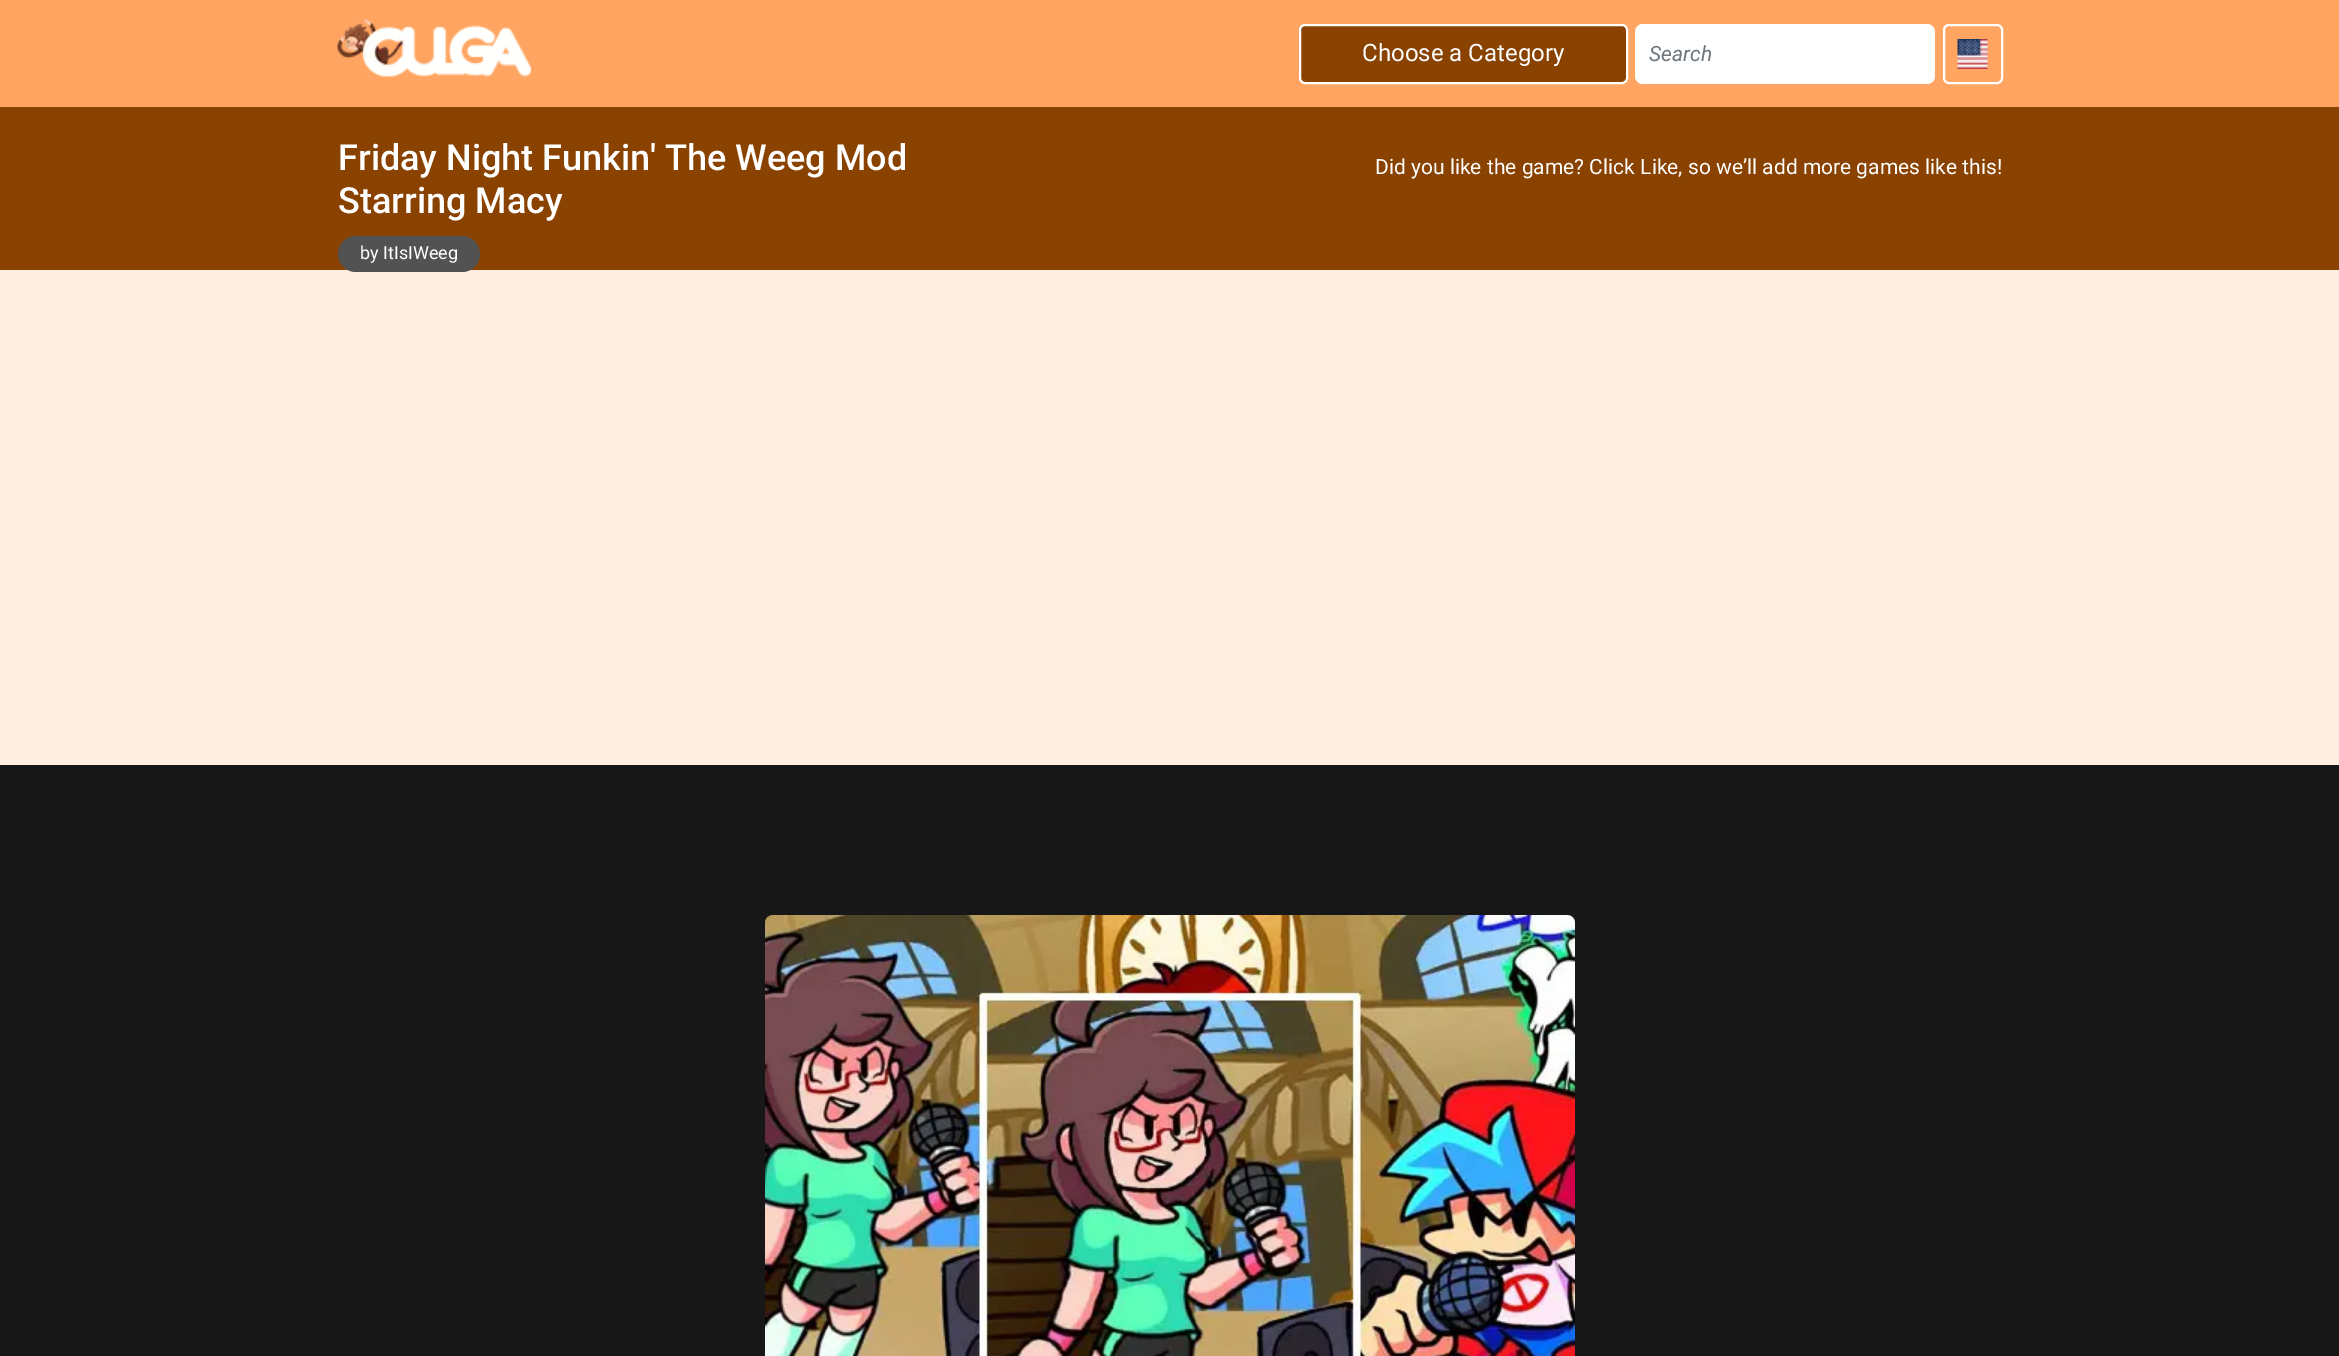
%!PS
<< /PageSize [2339 1356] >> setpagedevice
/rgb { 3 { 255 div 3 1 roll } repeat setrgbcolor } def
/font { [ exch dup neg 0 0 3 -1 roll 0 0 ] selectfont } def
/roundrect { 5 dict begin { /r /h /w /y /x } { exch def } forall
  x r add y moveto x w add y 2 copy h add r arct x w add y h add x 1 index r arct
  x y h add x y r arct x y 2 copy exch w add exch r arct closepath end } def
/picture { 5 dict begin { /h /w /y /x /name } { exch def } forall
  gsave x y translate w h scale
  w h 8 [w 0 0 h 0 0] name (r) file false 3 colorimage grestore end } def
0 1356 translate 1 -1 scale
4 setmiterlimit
255 238 225 rgb
0 0 2339 1356 rectfill
255 165 97 rgb
0 0 2339 107 rectfill
(img/1.rgb) 337 19 194 58 picture
138 66 0 rgb
1300 25 327 58 5 roundrect gsave fill grestore
255 255 255 rgb
2 setlinewidth
stroke
1635 24 300 60 8 roundrect fill
1944 25 58 58 5 roundrect stroke
(img/2.rgb) 1957 39 31 30 picture
138 66 0 rgb
0 107 2339 163 rectfill
82 82 82 rgb
338 236 142 36 18 roundrect fill
23 23 23 rgb
0 765 2339 591 rectfill
(img/3.rgb) 765 915 810 441 picture
/Roboto-Regular 24 font
255 255 255 rgb
1362 61 moveto (Choose a Category) show
/Roboto-Italic 21 font
108 117 125 rgb
1649 61 moveto (Search) show
/Roboto-Medium 36 font
255 255 255 rgb
338 170 moveto (Friday Night Funkin' The Weeg Mod) show
338 213 moveto (Starring Macy) show
/Roboto-Regular 18 font
360 259 moveto (by ItIsIWeeg) show
/Roboto-Regular 21 font
1375 174 moveto (Did you like the game? Click Like, so we’ll add more games like this!) show
showpage
